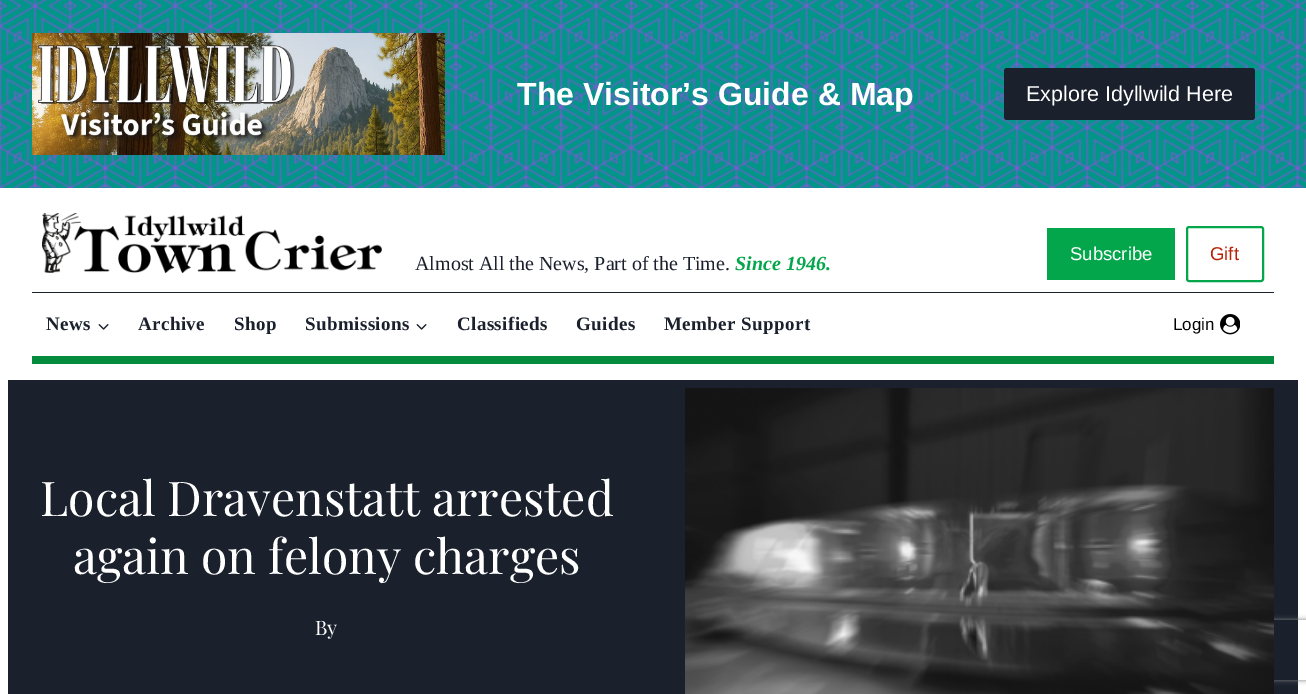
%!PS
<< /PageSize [1306 694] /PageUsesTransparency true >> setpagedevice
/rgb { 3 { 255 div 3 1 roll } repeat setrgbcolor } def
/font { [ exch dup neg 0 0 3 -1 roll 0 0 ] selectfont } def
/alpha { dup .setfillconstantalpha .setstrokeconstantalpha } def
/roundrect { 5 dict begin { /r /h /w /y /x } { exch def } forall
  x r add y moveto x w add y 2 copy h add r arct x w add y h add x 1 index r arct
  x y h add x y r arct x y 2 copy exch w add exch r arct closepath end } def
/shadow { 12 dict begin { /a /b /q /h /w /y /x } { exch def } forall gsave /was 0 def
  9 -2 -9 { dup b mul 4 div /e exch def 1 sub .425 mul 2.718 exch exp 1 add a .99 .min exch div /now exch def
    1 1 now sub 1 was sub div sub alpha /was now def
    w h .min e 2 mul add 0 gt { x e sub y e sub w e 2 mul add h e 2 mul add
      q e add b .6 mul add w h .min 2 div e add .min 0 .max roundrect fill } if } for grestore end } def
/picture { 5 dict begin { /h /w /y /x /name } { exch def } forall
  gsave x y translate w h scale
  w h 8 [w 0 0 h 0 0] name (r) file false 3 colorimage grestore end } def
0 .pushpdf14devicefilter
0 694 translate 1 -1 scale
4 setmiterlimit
255 255 255 rgb
0 0 1306 694 rectfill
(img/1.rgb) 0 0 1306 188 picture
(img/2.rgb) 32 33 413 122 picture
26 32 44 rgb
1004 68 251 52 3 roundrect fill
32 292 1242 1 rectfill
3 166 74 rgb
1047 228 128 52 rectfill
2 setlinewidth
1187 227 76 54 2 roundrect stroke
(img/3.rgb) 42 213 340 60 picture
3 140 62 rgb
32 356 1242 8 rectfill
(img/4.rgb) 98 324 11 6 picture
(img/4.rgb) 416 324 11 6 picture
(img/5.rgb) 1220 314 20 21 picture
26 32 44 rgb
8 380 1290 314 rectfill
gsave
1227 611 moveto 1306 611 lineto 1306 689 lineto 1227 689 lineto closepath 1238 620 moveto 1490 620 lineto 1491 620 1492 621 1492 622 curveto 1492 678 lineto 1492 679 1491 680 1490 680 curveto 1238 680 lineto 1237 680 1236 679 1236 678 curveto 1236 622 lineto 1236 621 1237 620 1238 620 curveto closepath eoclip newpath
128 128 128 rgb
1236 620 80 60 2 2.5 1 shadow
grestore
(img/6.rgb) 685 388 589 306 picture
/LiberationSans-Bold 32 font
255 255 255 rgb
517 105 moveto (The Visitor’s Guide & Map) show
/LiberationSans-Regular 21.5 font
1026 101 moveto (Explore Idyllwild Here) show
/LiberationSans-Regular 18.5 font
1070 260 moveto (Subscribe) show
184 33 5 rgb
1210 260 moveto (Gift) show
/LiberationSerif-Regular 20 font
26 32 44 rgb
415 270 moveto (Almost All the News, Part of the Time.) show
/LiberationSerif-BoldItalic 20 font
3 166 74 rgb
735 270 moveto (Since 1946.) show
/LiberationSerif-Bold 19 font
26 32 44 rgb
46 330 moveto 0.4 0 (News) ashow
138 330 moveto 0.4 0 (Archive) ashow
234 330 moveto 0.4 0 (Shop) ashow
305 330 moveto 0.4 0 (Submissions) ashow
457 330 moveto 0.4 0 (Classifieds) ashow
576 330 moveto 0.4 0 (Guides) ashow
664 330 moveto 0.4 0 (Member Support) ashow
/LiberationSans-Regular 17 font
0 0 0 rgb
1173 330 moveto (Login) show
/PlayfairDisplay-Regular 48 font
255 255 255 rgb
40 516 moveto (Local Dravenstatt arrested) show
73 574 moveto (again on felony charges) show
/PlayfairDisplay-Regular 20 font
315 635 moveto (By) show
.poppdf14devicefilter showpage
